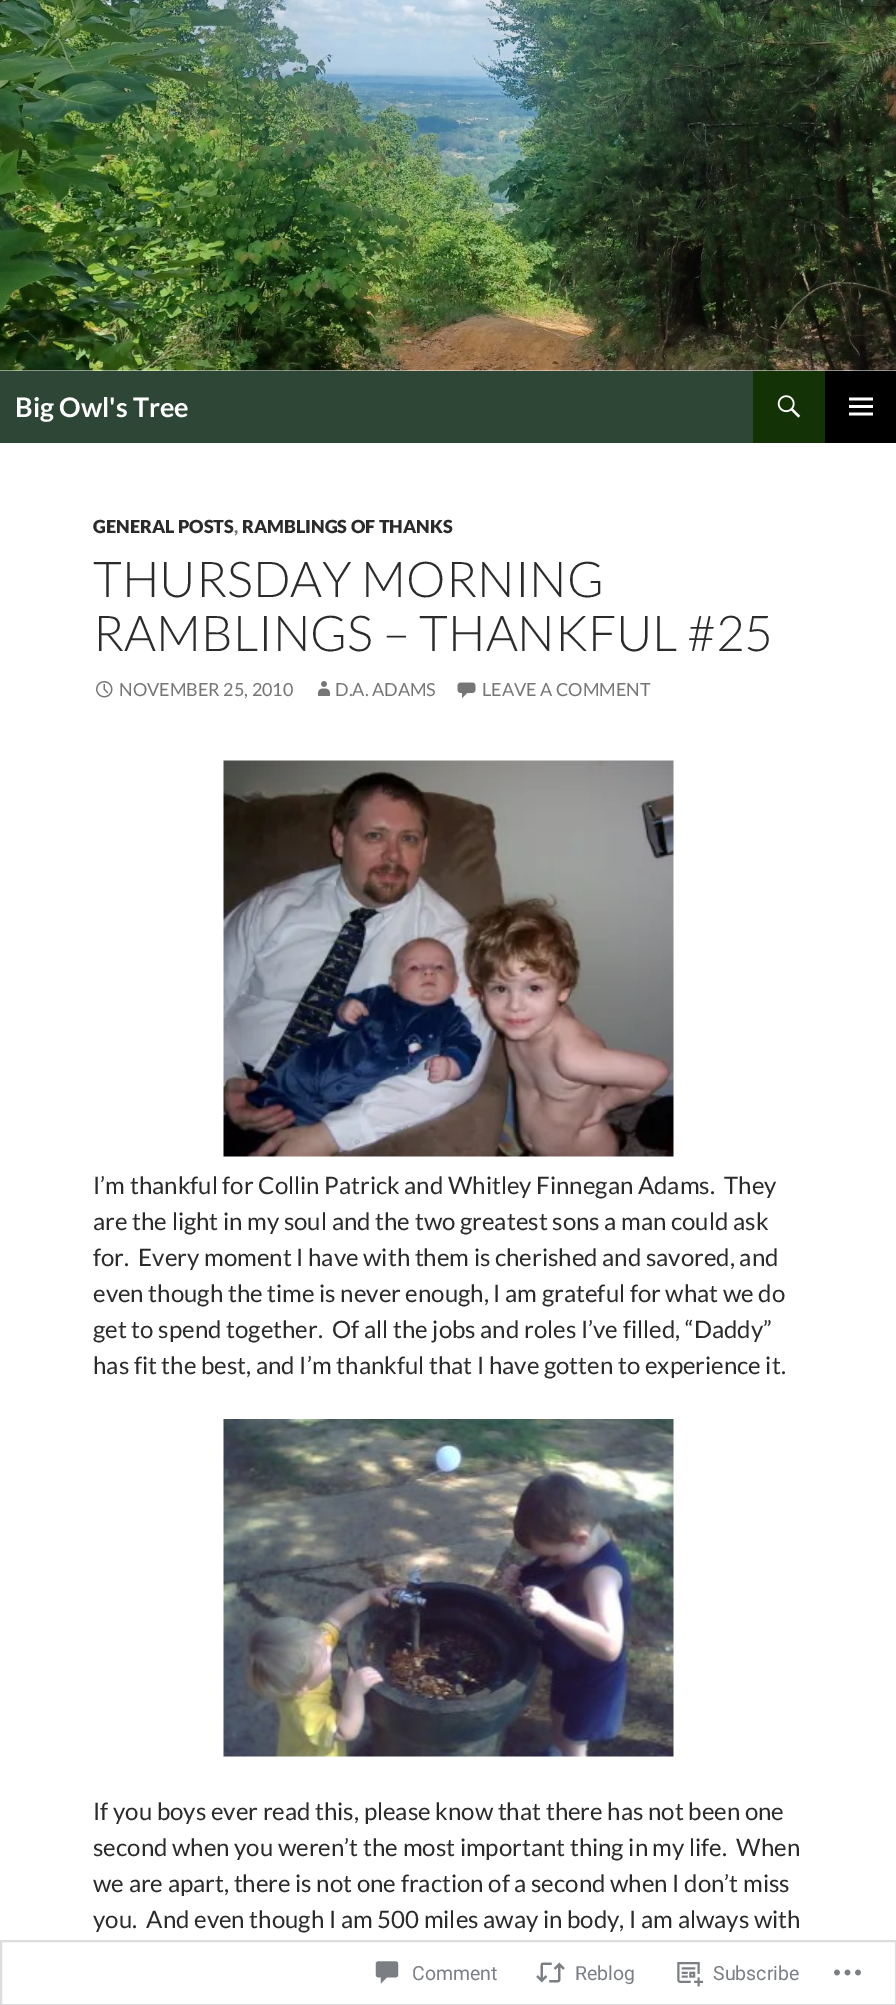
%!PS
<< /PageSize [896 2005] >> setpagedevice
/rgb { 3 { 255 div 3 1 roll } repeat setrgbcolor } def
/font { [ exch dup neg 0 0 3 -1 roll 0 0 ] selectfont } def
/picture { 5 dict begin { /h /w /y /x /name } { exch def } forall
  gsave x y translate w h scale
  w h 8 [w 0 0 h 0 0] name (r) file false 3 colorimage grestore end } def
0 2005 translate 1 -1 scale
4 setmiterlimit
255 255 255 rgb
0 0 896 2005 rectfill
(img/1.rgb) 0 0 896 371 picture
46 70 54 rgb
0 371 753 72 rectfill
19 50 6 rgb
753 371 72 72 rectfill
(img/2.rgb) 777 395 24 23 picture
0 0 0 rgb
825 371 71 72 rectfill
(img/3.rgb) 849 397 24 19 picture
(img/4.rgb) 96 681 17 17 picture
(img/5.rgb) 318 681 12 15 picture
(img/6.rgb) 457 682 19 17 picture
(img/7.rgb) 223 760 451 397 picture
(img/8.rgb) 223 1419 451 338 picture
221 221 223 rgb
2 setlinewidth
1 1941 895 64 rectstroke
(img/9.rgb) 375 1961 24 23 picture
(img/10.rgb) 536 1962 29 21 picture
(img/11.rgb) 677 1962 27 25 picture
(img/12.rgb) 834 1969 27 7 picture
/Lato-Bold 27 font
255 255 255 rgb
15 417 moveto (Big Owl's Tree) show
/Lato-Black 18 font
43 43 43 rgb
93 533 moveto (GENERAL POSTS) show
118 118 118 rgb
234 533 moveto (,) show
43 43 43 rgb
242 533 moveto (RAMBLINGS OF THANKS) show
/Lato-Light 49.5 font
93 597 moveto (THURSDAY MORNING) show
93 651 moveto (RAMBLINGS – THANKFUL #25) show
/Lato-Regular 18 font
118 118 118 rgb
[
  [(NOVEMBER 25, 2010) 119 696]
  [(D.A. ADAMS) 335 696]
  [(LEAVE A COMMENT) 482 696]
] { aload pop moveto show } forall
/Lato-Regular 24 font
43 43 43 rgb
[
  [(I’m thankful for Collin Patrick and Whitley Finnegan Adams.  They) 93 1194]
  [(are the light in my soul and the two greatest sons a man could ask) 93 1230]
  [(for.  Every moment I have with them is cherished and savored, and) 93 1266]
  [(even though the time is never enough, I am grateful for what we do) 93 1302]
  [(get to spend together.  Of all the jobs and roles I’ve filled, “Daddy”) 93 1338]
  [(has fit the best, and I’m thankful that I have gotten to experience it.) 93 1374]
  [(If you boys ever read this, please know that there has not been one) 93 1820]
  [(second when you weren’t the most important thing in my life.  When) 93 1856]
  [(we are apart, there is not one fraction of a second when I don’t miss) 93 1892]
  [(you.  And even though I am 500 miles away in body, I am always with) 93 1928]
] { aload pop moveto show } forall
/Roboto-Regular 19.5 font
123 127 133 rgb
[
  [(Comment) 412 1980]
  [(Reblog) 575 1980]
  [(Subscribe) 713 1980]
] { aload pop moveto show } forall
showpage
